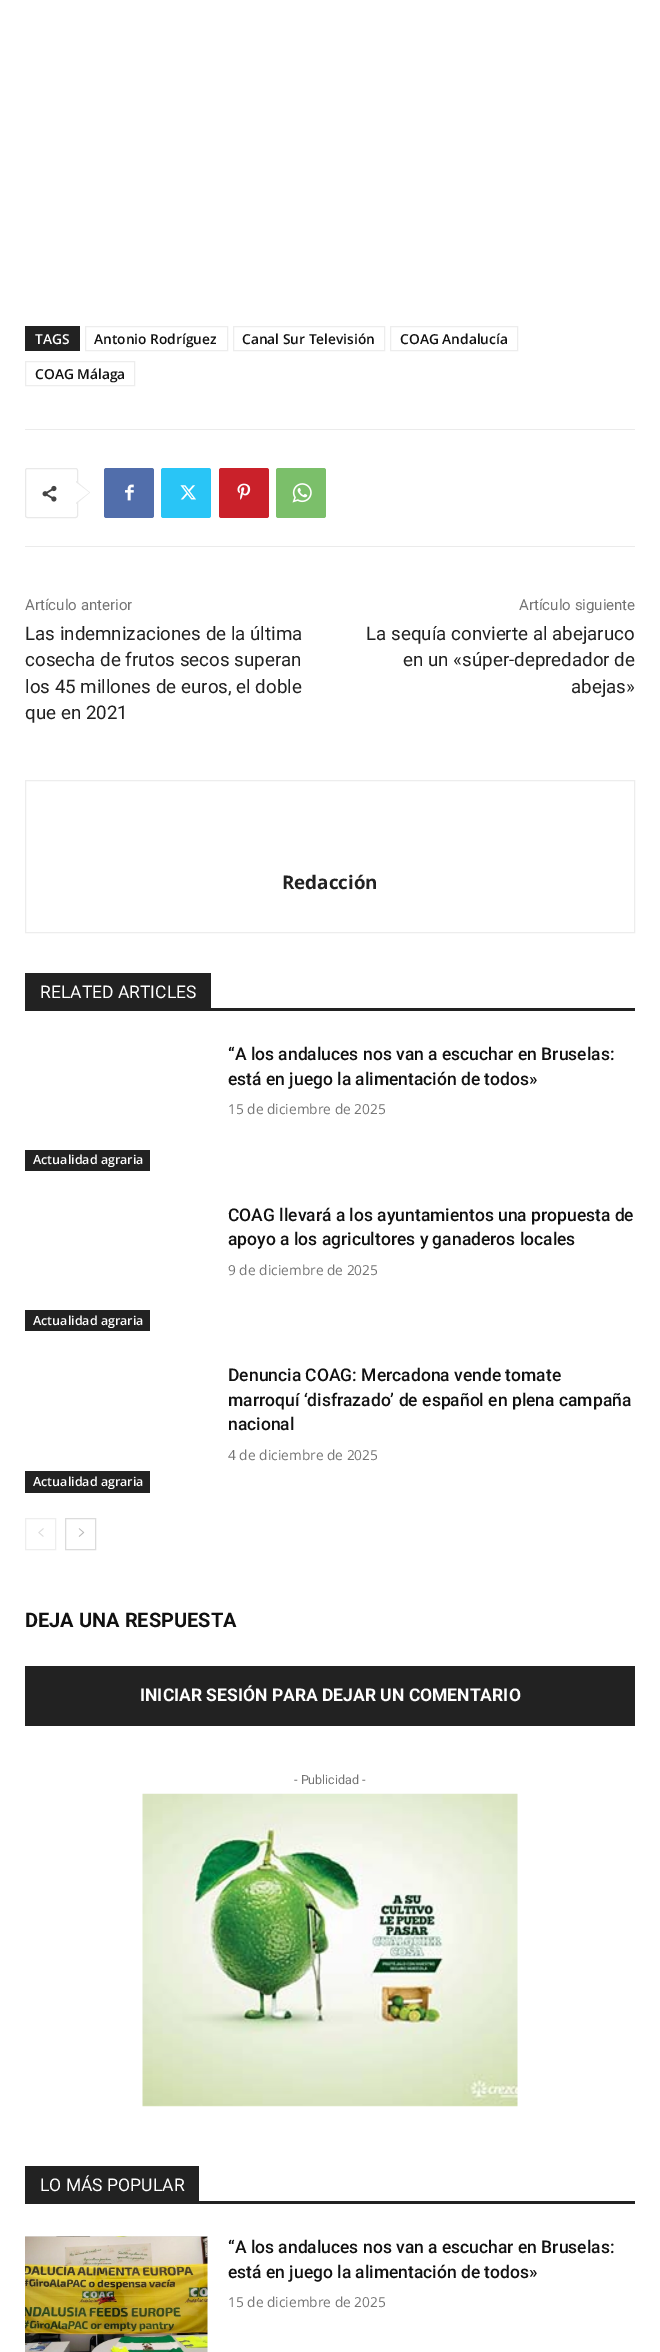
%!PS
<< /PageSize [660 2352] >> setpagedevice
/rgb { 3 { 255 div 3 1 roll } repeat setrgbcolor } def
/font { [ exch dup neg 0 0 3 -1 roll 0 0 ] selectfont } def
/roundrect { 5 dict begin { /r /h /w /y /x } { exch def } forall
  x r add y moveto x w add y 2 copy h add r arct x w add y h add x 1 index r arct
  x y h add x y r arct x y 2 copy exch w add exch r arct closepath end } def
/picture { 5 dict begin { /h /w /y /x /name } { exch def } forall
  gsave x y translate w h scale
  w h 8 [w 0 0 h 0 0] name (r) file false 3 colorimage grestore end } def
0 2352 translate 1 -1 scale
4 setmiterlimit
255 255 255 rgb
0 0 660 2352 rectfill
34 34 34 rgb
25 326 55 25 rectfill
237 237 237 rgb
85.5 326.5 142 24 rectstroke
233.5 326.5 151 24 rectstroke
390.5 326.5 127 24 rectstroke
25.5 361.5 109 24 rectstroke
235 235 235 rgb
25 429 610 1 rectfill
233 233 233 rgb
25.5 468.5 52 49 2 roundrect stroke
76 504 moveto 76 481 lineto 90 492.5 lineto closepath fill
(img/1.rgb) 42 485 15 17 picture
255 255 255 rgb
76 502.5 moveto 76 482.5 lineto 89 492.5 lineto closepath fill
81 110 171 rgb
104 468 50 50 2.5 roundrect fill
(img/2.rgb) 125 484 9 17 picture
41 197 246 rgb
161 468 50 50 2.5 roundrect fill
(img/3.rgb) 180 485 16 15 picture
202 33 42 rgb
219 468 50 50 2.5 roundrect fill
(img/4.rgb) 237 483 14 17 picture
123 191 106 rgb
276 468 50 50 2.5 roundrect fill
(img/5.rgb) 292 483 20 20 picture
235 235 235 rgb
25 546 610 1 rectfill
237 237 237 rgb
25.5 780.5 609 152 rectstroke
[
  [25 1008 610 3 34 34 34]
  [25 973 186 35 34 34 34]
  [25 1150 125 21 34 34 34]
  [25 1310 125 21 34 34 34]
  [25 1471 125 22 34 34 34]
] { aload pop rgb rectfill } forall
238 238 238 rgb
25.5 1518.5 30 31 rectstroke
(img/6.rgb) 38 1528 6 9 picture
220 220 220 rgb
65.5 1518.5 30 31 rectstroke
(img/7.rgb) 78 1528 7 9 picture
34 34 34 rgb
25 1666 610 60 rectfill
(img/8.rgb) 142 1793 376 314 picture
25 2201 610 3 rectfill
25 2166 174 35 rectfill
(img/9.rgb) 25 2236 183 116 picture
/OpenSans-SemiBold 13.75 font
255 255 255 rgb
35 344 moveto (TAGS) show
17 17 17 rgb
[
  [(Antonio Rodríguez) 94 344]
  [(Canal Sur Televisión) 242 344]
  [(COAG Andalucía) 400 344]
  [(COAG Málaga) 35 379]
] { aload pop moveto show } forall
/Roboto-Regular 15 font
116 116 116 rgb
25 610 moveto (Artículo anterior) show
/Roboto-Regular 18.75 font
34 34 34 rgb
[
  [(Las indemnizaciones de la última) 25 640]
  [(cosecha de frutos secos superan) 25 666]
  [(los 45 millones de euros, el doble) 25 693]
  [(que en 2021) 25 719]
] { aload pop moveto show } forall
/Roboto-Regular 15 font
116 116 116 rgb
519 610 moveto (Artículo siguiente) show
/Roboto-Regular 18.75 font
34 34 34 rgb
[
  [(La sequía convierte al abejaruco) 366 640]
  [(en un «súper-depredador de) 403 666]
  [(abejas») 571 693]
] { aload pop moveto show } forall
/OpenSans-Bold 18.75 font
282 889 moveto (Redacción) show
/Roboto-Regular 17.5 font
255 255 255 rgb
40 998 moveto (RELATED ARTICLES) show
/Roboto-Medium 17.5 font
17 17 17 rgb
228 1060 moveto (“A los andaluces nos van a escuchar en Bruselas:) show
228 1085 moveto (está en juego la alimentación de todos») show
/OpenSans-Regular 13.75 font
116 116 116 rgb
228 1114 moveto (15 de diciembre de 2025) show
/OpenSans-SemiBold 12.5 font
255 255 255 rgb
33 1164 moveto (Actualidad agraria) show
/Roboto-Medium 17.5 font
17 17 17 rgb
228 1221 moveto (COAG llevará a los ayuntamientos una propuesta de) show
228 1245 moveto (apoyo a los agricultores y ganaderos locales) show
/OpenSans-Regular 13.75 font
116 116 116 rgb
228 1275 moveto (9 de diciembre de 2025) show
/OpenSans-SemiBold 12.5 font
255 255 255 rgb
33 1325 moveto (Actualidad agraria) show
/Roboto-Medium 17.5 font
17 17 17 rgb
[
  [(Denuncia COAG: Mercadona vende tomate) 228 1381]
  [(marroquí ‘disfrazado’ de español en plena campaña) 228 1406]
  [(nacional) 228 1430]
] { aload pop moveto show } forall
/OpenSans-Regular 13.75 font
116 116 116 rgb
228 1460 moveto (4 de diciembre de 2025) show
/OpenSans-SemiBold 12.5 font
255 255 255 rgb
33 1486 moveto (Actualidad agraria) show
/Roboto-Bold 20 font
17 17 17 rgb
25 1627 moveto (DEJA UNA RESPUESTA) show
/Roboto-Bold 17.5 font
255 255 255 rgb
140 1701 moveto (INICIAR SESIÓN PARA DEJAR UN COMENTARIO) show
/Roboto-Regular 12.5 font
116 116 116 rgb
294 1784 moveto (- Publicidad -) show
/Roboto-Regular 17.5 font
255 255 255 rgb
40 2191 moveto (LO MÁS POPULAR) show
/Roboto-Medium 17.5 font
17 17 17 rgb
228 2253 moveto (“A los andaluces nos van a escuchar en Bruselas:) show
228 2278 moveto (está en juego la alimentación de todos») show
/OpenSans-Regular 13.75 font
116 116 116 rgb
228 2307 moveto (15 de diciembre de 2025) show
showpage
